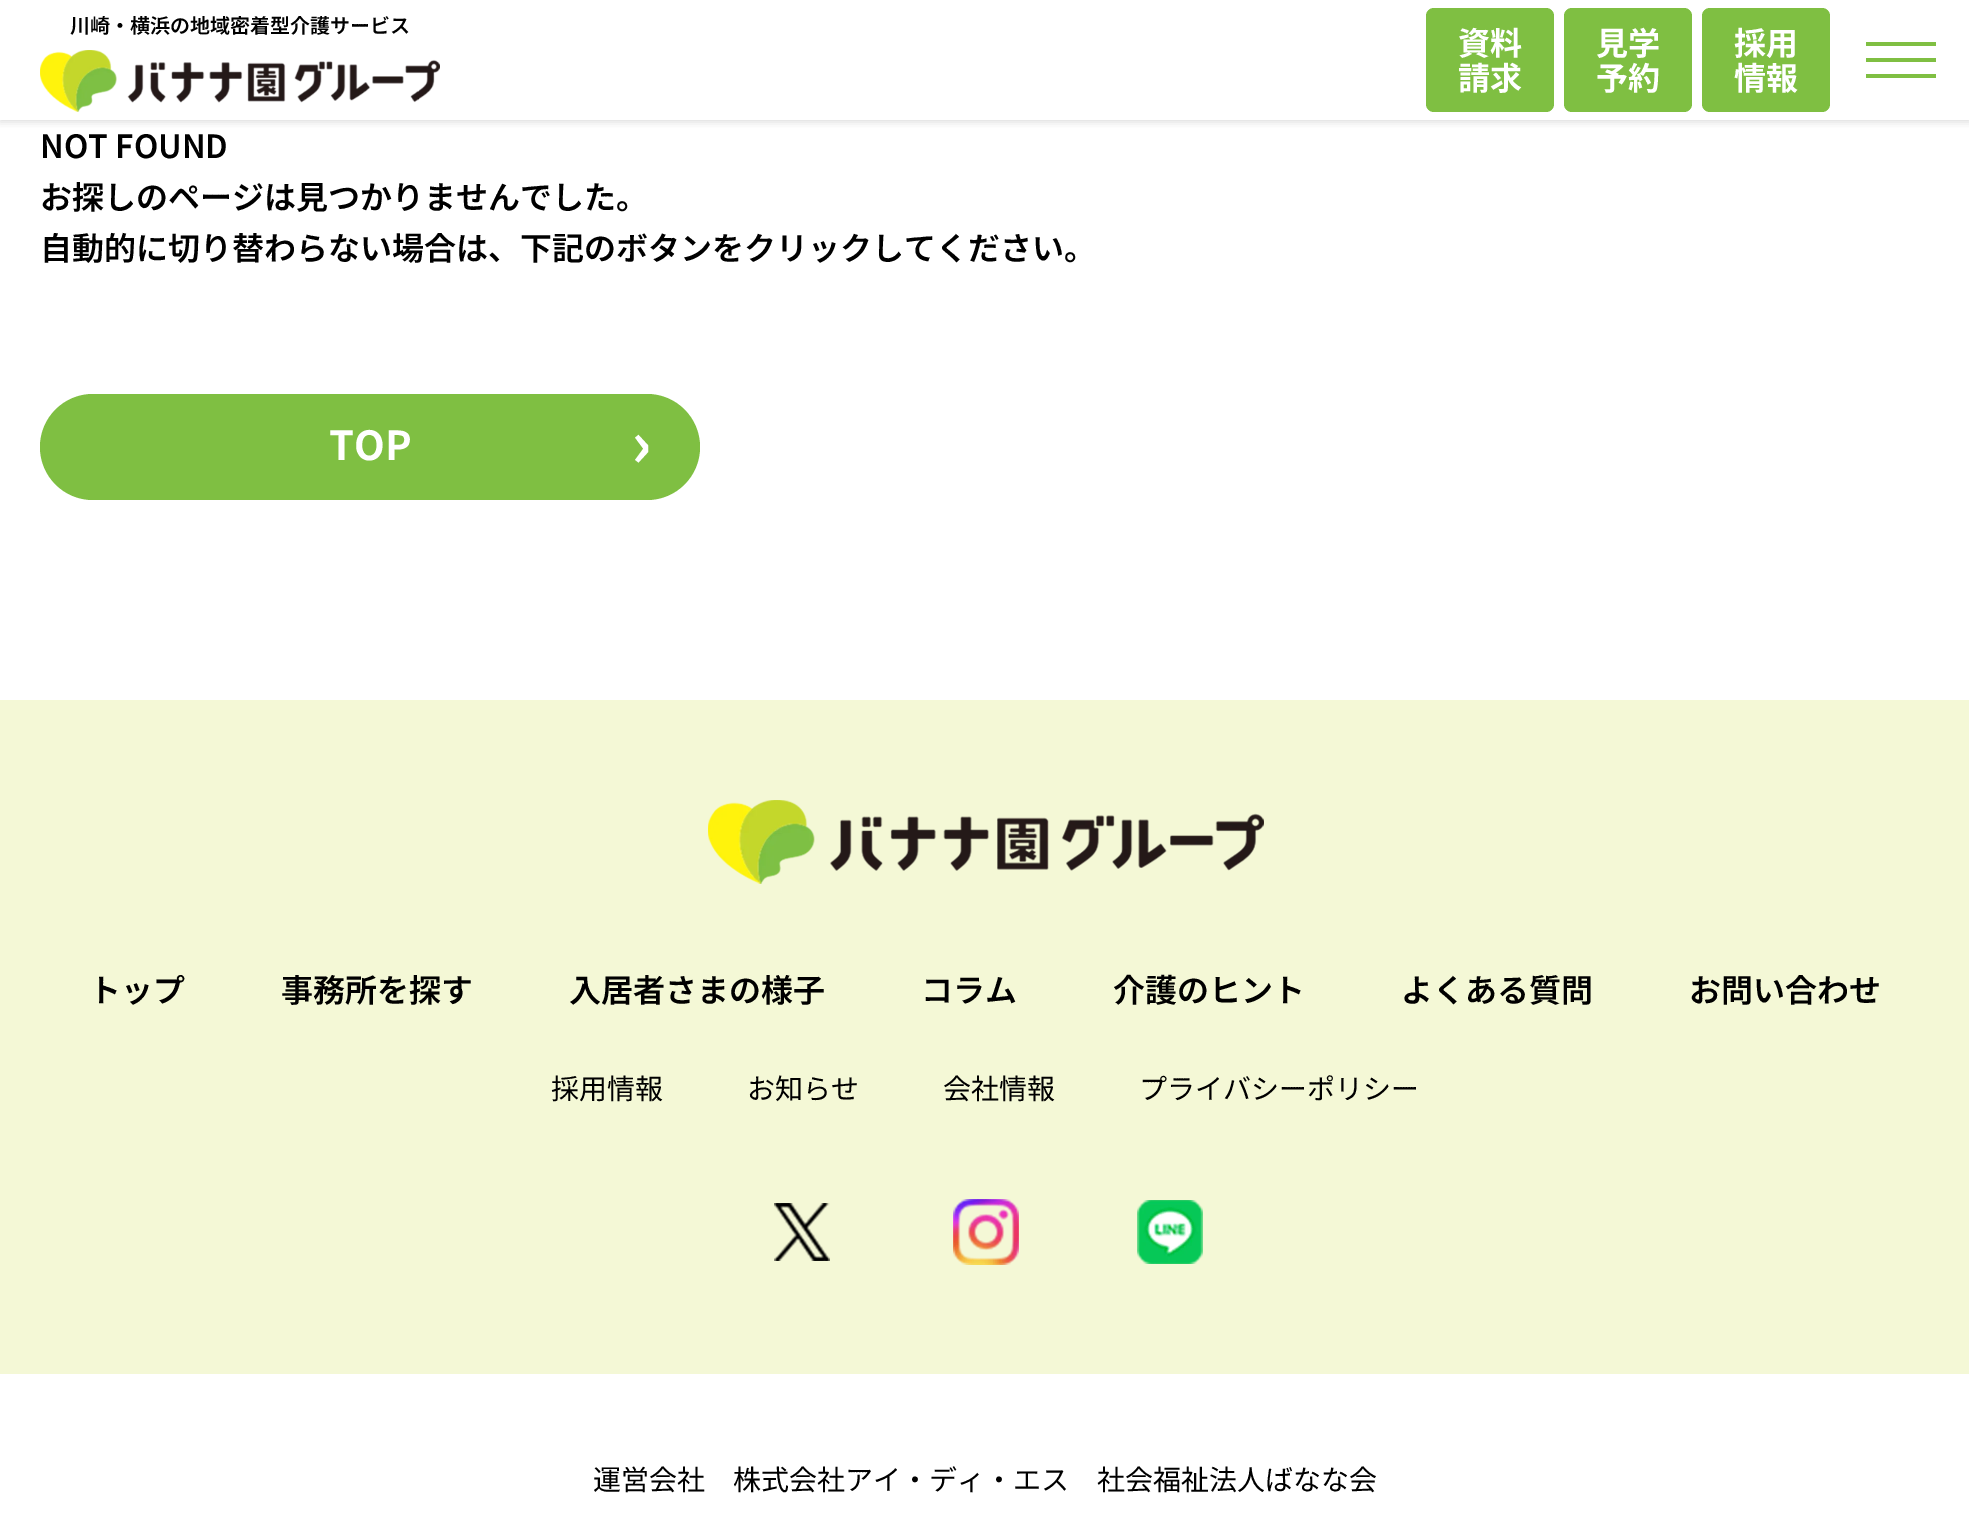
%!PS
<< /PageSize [1969 1514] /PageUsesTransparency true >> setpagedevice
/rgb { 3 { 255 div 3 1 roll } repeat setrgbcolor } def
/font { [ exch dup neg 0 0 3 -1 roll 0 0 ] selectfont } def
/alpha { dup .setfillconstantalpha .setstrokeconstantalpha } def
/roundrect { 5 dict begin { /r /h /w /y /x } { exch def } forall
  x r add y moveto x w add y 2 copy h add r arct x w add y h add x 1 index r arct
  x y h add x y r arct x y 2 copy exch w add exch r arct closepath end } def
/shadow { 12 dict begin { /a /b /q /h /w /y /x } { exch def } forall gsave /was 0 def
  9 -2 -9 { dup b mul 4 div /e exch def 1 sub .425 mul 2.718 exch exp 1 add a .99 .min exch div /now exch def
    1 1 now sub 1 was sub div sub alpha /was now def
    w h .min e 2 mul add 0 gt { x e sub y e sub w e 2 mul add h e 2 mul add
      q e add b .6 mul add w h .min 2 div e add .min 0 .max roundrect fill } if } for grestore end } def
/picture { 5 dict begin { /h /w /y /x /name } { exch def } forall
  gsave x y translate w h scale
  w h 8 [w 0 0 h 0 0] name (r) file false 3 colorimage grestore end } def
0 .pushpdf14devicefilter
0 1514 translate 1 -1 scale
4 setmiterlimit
255 255 255 rgb
0 0 1969 1514 rectfill
gsave
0 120 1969 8 rectclip
142 142 142 rgb
0 2 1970 120 0 4 0.3 shadow
grestore
(img/1.rgb) 40 50 400 62 picture
127 191 66 rgb
1426 8 128 104 8 roundrect fill
1564 8 128 104 8 roundrect fill
1702 8 128 104 8 roundrect fill
[
  [1866 42 70 4 127 191 66]
  [1866 58 70 4 127 191 66]
  [1866 74 70 4 127 191 66]
] { aload pop rgb rectfill } forall
40 394 660 106 53 roundrect fill
244 248 214 rgb
0 700 1969 674 rectfill
(img/2.rgb) 708 800 556 84 picture
(img/3.rgb) 774 1203 56 58 picture
(img/4.rgb) 953 1199 66 66 picture
(img/5.rgb) 1137 1200 66 64 picture
/NotoSansJP-SemiBold 20 font
0 0 0 rgb
70 33 moveto (川崎・横浜の地域密着型介護サービス) show
/NotoSansJP-Bold 32 font
255 255 255 rgb
[
  [(資料) 1458 55]
  [(請求) 1458 90]
  [(見学) 1596 55]
  [(予約) 1596 90]
  [(採用) 1734 55]
  [(情報) 1734 90]
] { aload pop moveto show } forall
/NotoSansJP-SemiBold 32 font
0 0 0 rgb
[
  [(NOT FOUND) 40 158]
  [(お探しのページは見つかりませんでした。) 40 209]
  [(自動的に切り替わらない場合は、下記のボタンをクリックしてください。) 40 260]
] { aload pop moveto show } forall
/NotoSansJP-Bold 40 font
255 255 255 rgb
329 460 moveto (TOP) show
/NotoSansJP-Bold 64 font
631 467 moveto (›) show
/NotoSansJP-SemiBold 32 font
0 0 0 rgb
[
  [(トップ) 89 1002]
  [(事務所を探す) 281 1002]
  [(入居者さまの様子) 569 1002]
  [(コラム) 921 1002]
  [(介護のヒント) 1113 1002]
  [(よくある質問) 1401 1002]
  [(お問い合わせ) 1689 1002]
] { aload pop moveto show } forall
/NotoSansJP-Regular 28 font
[
  [(採用情報) 551 1099]
  [(お知らせ) 747 1099]
  [(会社情報) 943 1099]
  [(プライバシーポリシー) 1139 1099]
  [(運営会社　株式会社アイ・ディ・エス　社会福祉法人ばなな会) 593 1490]
] { aload pop moveto show } forall
.poppdf14devicefilter showpage
